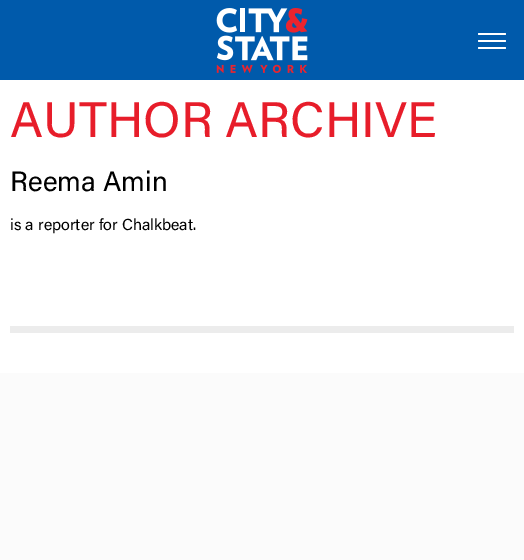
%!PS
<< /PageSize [524 560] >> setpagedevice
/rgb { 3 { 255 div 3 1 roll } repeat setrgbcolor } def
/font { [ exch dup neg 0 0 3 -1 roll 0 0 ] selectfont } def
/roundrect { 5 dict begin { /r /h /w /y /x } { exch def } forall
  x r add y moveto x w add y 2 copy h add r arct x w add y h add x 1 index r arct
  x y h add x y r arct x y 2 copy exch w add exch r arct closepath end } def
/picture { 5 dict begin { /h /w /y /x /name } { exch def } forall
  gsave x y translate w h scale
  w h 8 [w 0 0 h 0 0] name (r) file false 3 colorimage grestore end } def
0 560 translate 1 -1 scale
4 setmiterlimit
255 255 255 rgb
0 0 524 560 rectfill
0 90 171 rgb
0 0 524 80 rectfill
(img/1.rgb) 216 8 92 65 picture
255 255 255 rgb
478 40 28 2 1 roundrect fill
478 33 28 2 1 roundrect fill
478 47 28 2 1 roundrect fill
236 236 236 rgb
10 326 504 7 rectfill
251 251 251 rgb
0 373 524 187 rectfill
/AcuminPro-Regular 50 font
231 29 42 rgb
10 137 moveto (AUTHOR ARCHIVE) show
/AcuminPro-Regular 28 font
0 0 0 rgb
10 191 moveto (Reema Amin) show
/AcuminPro-Regular 16 font
10 230 moveto (is a reporter for Chalkbeat.) show
showpage
